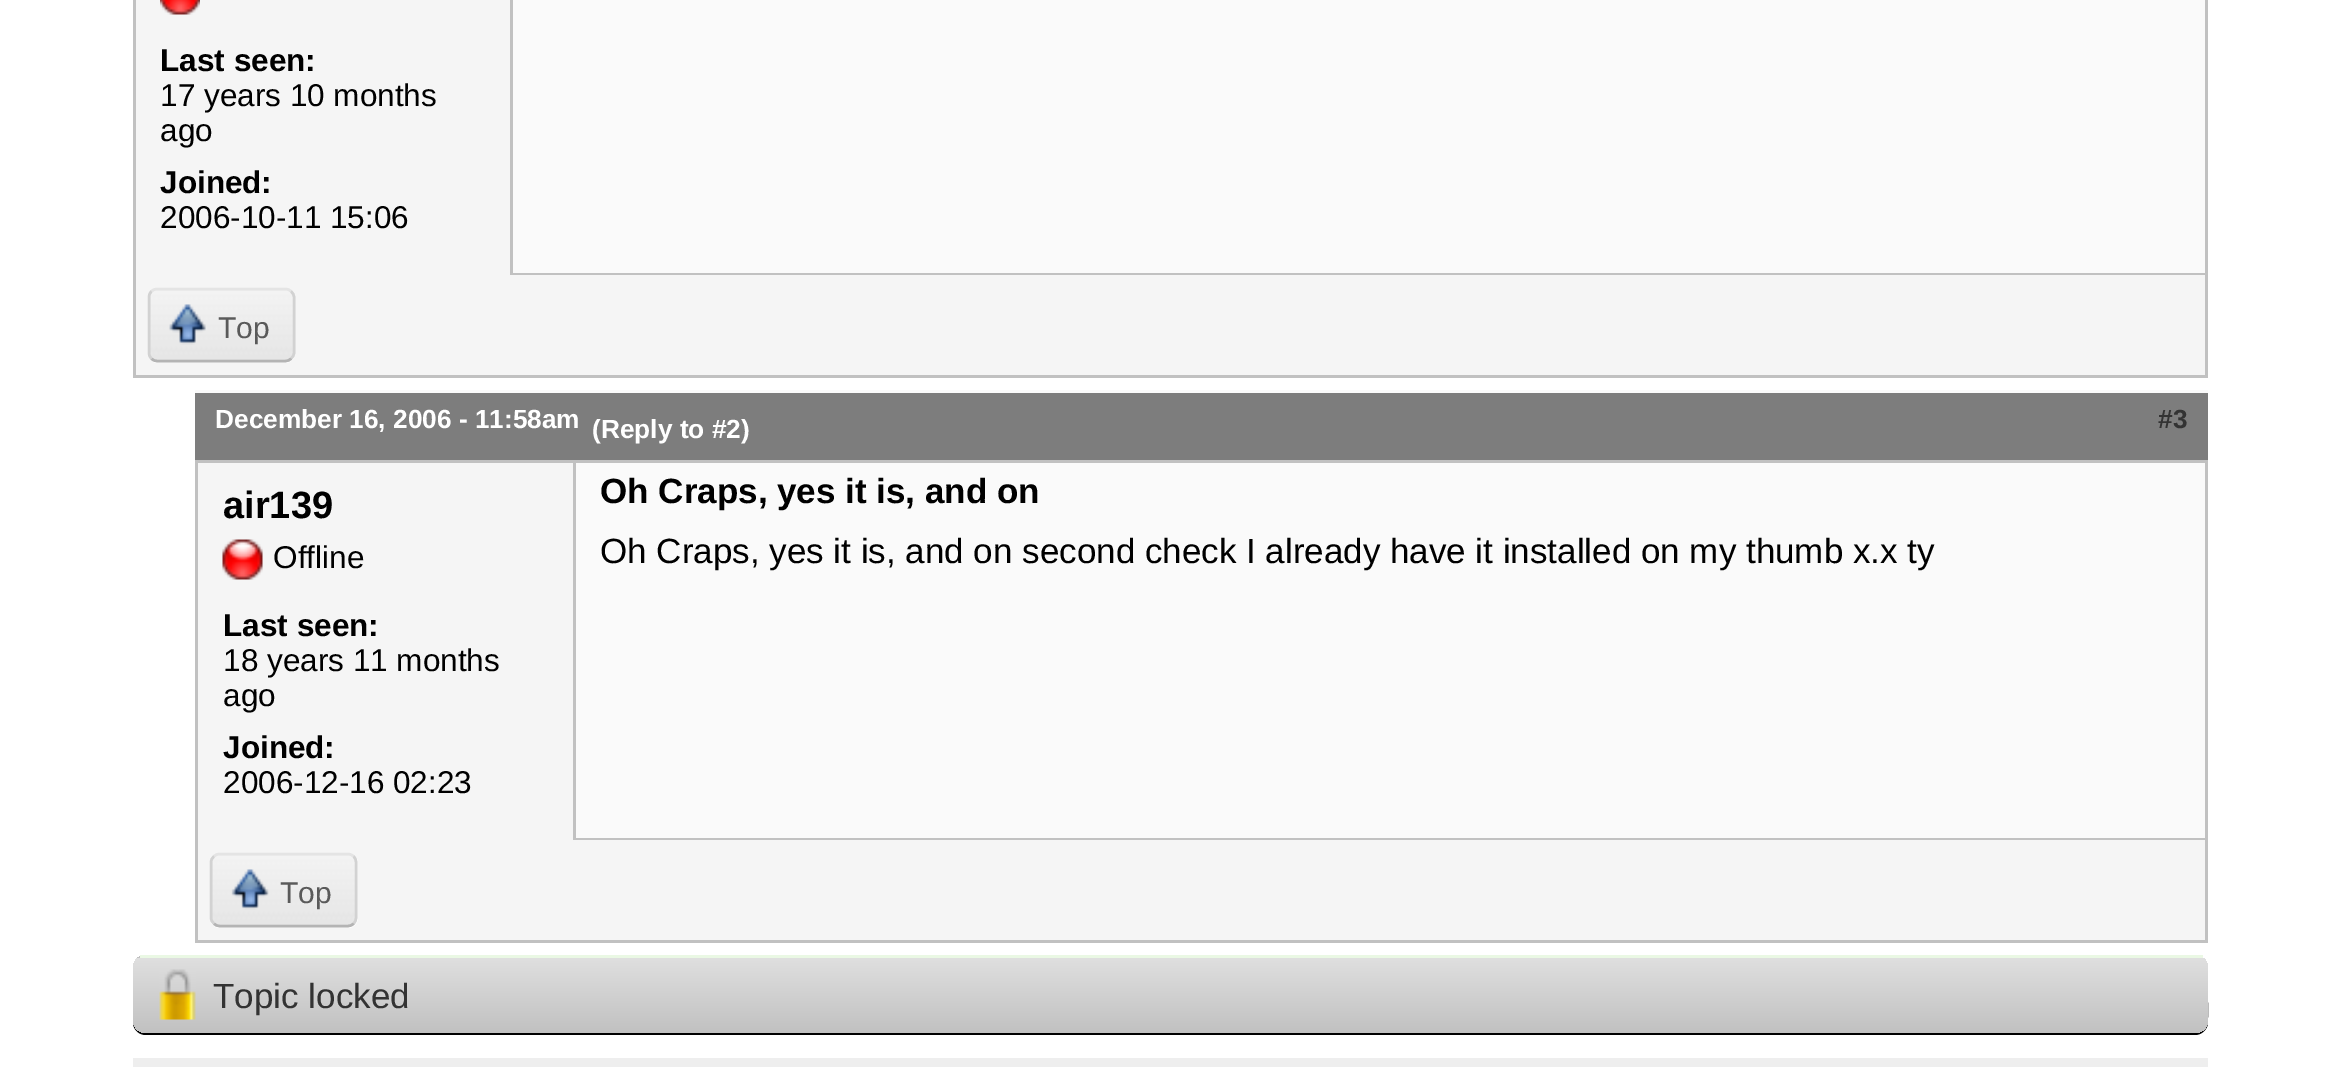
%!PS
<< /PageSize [2340 1067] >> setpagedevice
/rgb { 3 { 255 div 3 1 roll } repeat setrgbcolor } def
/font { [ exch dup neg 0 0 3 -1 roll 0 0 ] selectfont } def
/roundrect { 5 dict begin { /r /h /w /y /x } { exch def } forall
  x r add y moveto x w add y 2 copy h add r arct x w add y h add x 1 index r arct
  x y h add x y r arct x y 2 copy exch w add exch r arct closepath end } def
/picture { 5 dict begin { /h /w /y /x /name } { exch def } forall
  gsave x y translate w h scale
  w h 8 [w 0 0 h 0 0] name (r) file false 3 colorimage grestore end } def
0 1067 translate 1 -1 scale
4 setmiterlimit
255 255 255 rgb
0 0 2340 1067 rectfill
[
  [136 0 374 275 245 245 245]
  [2205 0 3 378 193 193 193]
  [133 0 3 275 193 193 193]
] { aload pop rgb rectfill } forall
(img/1.rgb) 160 0 40 15 picture
[
  [513 0 1692 273 250 250 250]
  [510 273 1695 2 193 193 193]
  [510 0 3 275 193 193 193]
  [136 275 2069 100 245 245 245]
  [133 375 2075 3 193 193 193]
  [133 275 3 103 193 193 193]
] { aload pop rgb rectfill } forall
255 255 255 rgb
148 288 147 75 10 roundrect fill
(img/2.rgb) 148 289 147 73 picture
228 228 228 rgb
2.5 setlinewidth
151.5 291.5 moveto 153 289.5 155 289 157.5 289 curveto 285 289 lineto 287.5 289 289.5 289.5 291 291.5 curveto stroke
210 210 210 rgb
291 291.5 moveto 293 293 294 295 294 297.5 curveto 294 352.5 lineto 294 355 293 357 291 358.5 curveto stroke
180 180 180 rgb
291 358.5 moveto 289.5 360.5 287.5 361 285 361 curveto 157.5 361 lineto 155 361 153 360.5 151.5 358.5 curveto stroke
210 210 210 rgb
151.5 358.5 moveto 149.5 357 149 355 149 352.5 curveto 149 297.5 lineto 149 295 149.5 293 151.5 291.5 curveto stroke
(img/3.rgb) 169 304 37 41 picture
[
  [195 393 2013 67 125 125 125]
  [195 390 2013 3 250 250 250]
  [195 460 2013 3 193 193 193]
  [198 463 375 377 245 245 245]
  [2205 463 3 480 193 193 193]
  [195 463 3 377 193 193 193]
] { aload pop rgb rectfill } forall
(img/4.rgb) 222 539 41 41 picture
[
  [576 463 1629 375 250 250 250]
  [573 838 1632 2 193 193 193]
  [573 463 3 377 193 193 193]
  [198 840 2007 100 245 245 245]
  [195 940 2013 3 193 193 193]
  [195 840 3 103 193 193 193]
] { aload pop rgb rectfill } forall
255 255 255 rgb
210 853 148 75 10 roundrect fill
(img/5.rgb) 210 854 148 73 picture
228 228 228 rgb
214 856.5 moveto 215.5 854.5 217.5 854 220 854 curveto 347.5 854 lineto 350 854 352 854.5 353.5 856.5 curveto stroke
210 210 210 rgb
353.5 856.5 moveto 355.5 858 356 860 356 862.5 curveto 356 917.5 lineto 356 920 355.5 922 353.5 923.5 curveto stroke
180 180 180 rgb
353.5 923.5 moveto 352 925.5 350 926 347.5 926 curveto 220 926 lineto 217.5 926 215.5 925.5 214 923.5 curveto stroke
210 210 210 rgb
214 923.5 moveto 212 922 211 920 211 917.5 curveto 211 862.5 lineto 211 860 212 858 214 856.5 curveto stroke
(img/6.rgb) 231 869 38 41 picture
0 0 0 rgb
133 1024 moveto 134 1030 139 1035 146 1035 curveto 2195 1035 lineto 2202 1035 2208 1029 2208 1022 curveto 2208 971 lineto 2207 967 lineto 2208 1002 lineto 2208 1013 2211 1032 2195 1032 curveto 145 1032 lineto 140 1032 135 1029 133 1024 curveto closepath fill
gsave
133 955 2075 78 13 roundrect clip newpath
gsave 133 956 moveto 140 956 lineto 140 958 lineto 133 958 lineto closepath clip newpath
<< /ShadingType 2 /ColorSpace /DeviceRGB /Coords [133 883 133 958] /Extend [true true] /Function << /FunctionType 2 /Domain [0 1] /C0 [0.875 0.875 0.875] /C1 [0.757 0.757 0.757] /N 1 >> >> shfill grestore
gsave 133 958 moveto 2208 958 lineto 2208 1020 lineto 2208 1027 2202 1033 2195 1033 curveto 146 1033 lineto 139 1033 133 1027 133 1020 curveto closepath clip newpath
<< /ShadingType 2 /ColorSpace /DeviceRGB /Coords [133 958 133 1033] /Extend [true true] /Function << /FunctionType 2 /Domain [0 1] /C0 [0.875 0.875 0.875] /C1 [0.757 0.757 0.757] /N 1 >> >> shfill grestore
grestore
234 248 228 rgb
140 955 2063 3 rectfill
(img/7.rgb) 159 969 37 51 picture
238 238 238 rgb
133 1058 2075 9 rectfill
/Arimo-Bold 31.5 font
0 0 0 rgb
160 71 moveto (Last seen:) show
/Arimo-Regular 31.5 font
160 106 moveto (17 years 10 months) show
160 141 moveto (ago) show
/Arimo-Bold 31.5 font
160 193 moveto (Joined:) show
/Arimo-Regular 31.5 font
160 228 moveto (2006-10-11 15:06) show
/LiberationSans-Regular 30 font
90 90 90 rgb
218 338 moveto (Top) show
/Arimo-Bold 26.25 font
255 255 255 rgb
215 428 moveto (December 16, 2006 - 11:58am) show
592 438 moveto (\(Reply to #2\)) show
51 51 51 rgb
2158 428 moveto (#3) show
/Arimo-Bold 38 font
0 0 0 rgb
223 518 moveto (air139) show
/Arimo-Regular 31.5 font
273 568 moveto (Offline) show
/Arimo-Bold 31.5 font
223 636 moveto (Last seen:) show
/Arimo-Regular 31.5 font
223 671 moveto (18 years 11 months) show
223 706 moveto (ago) show
/Arimo-Bold 31.5 font
223 758 moveto (Joined:) show
/Arimo-Regular 31.5 font
223 793 moveto (2006-12-16 02:23) show
/Arimo-Bold 35 font
600 503 moveto (Oh Craps, yes it is, and on) show
/Arimo-Regular 35 font
600 563 moveto (Oh Craps, yes it is, and on second check I already have it installed on my thumb x.x ty) show
/LiberationSans-Regular 30 font
90 90 90 rgb
280 903 moveto (Top) show
/LiberationSans-Regular 35 font
51 51 51 rgb
213 1008 moveto (Topic locked) show
showpage
